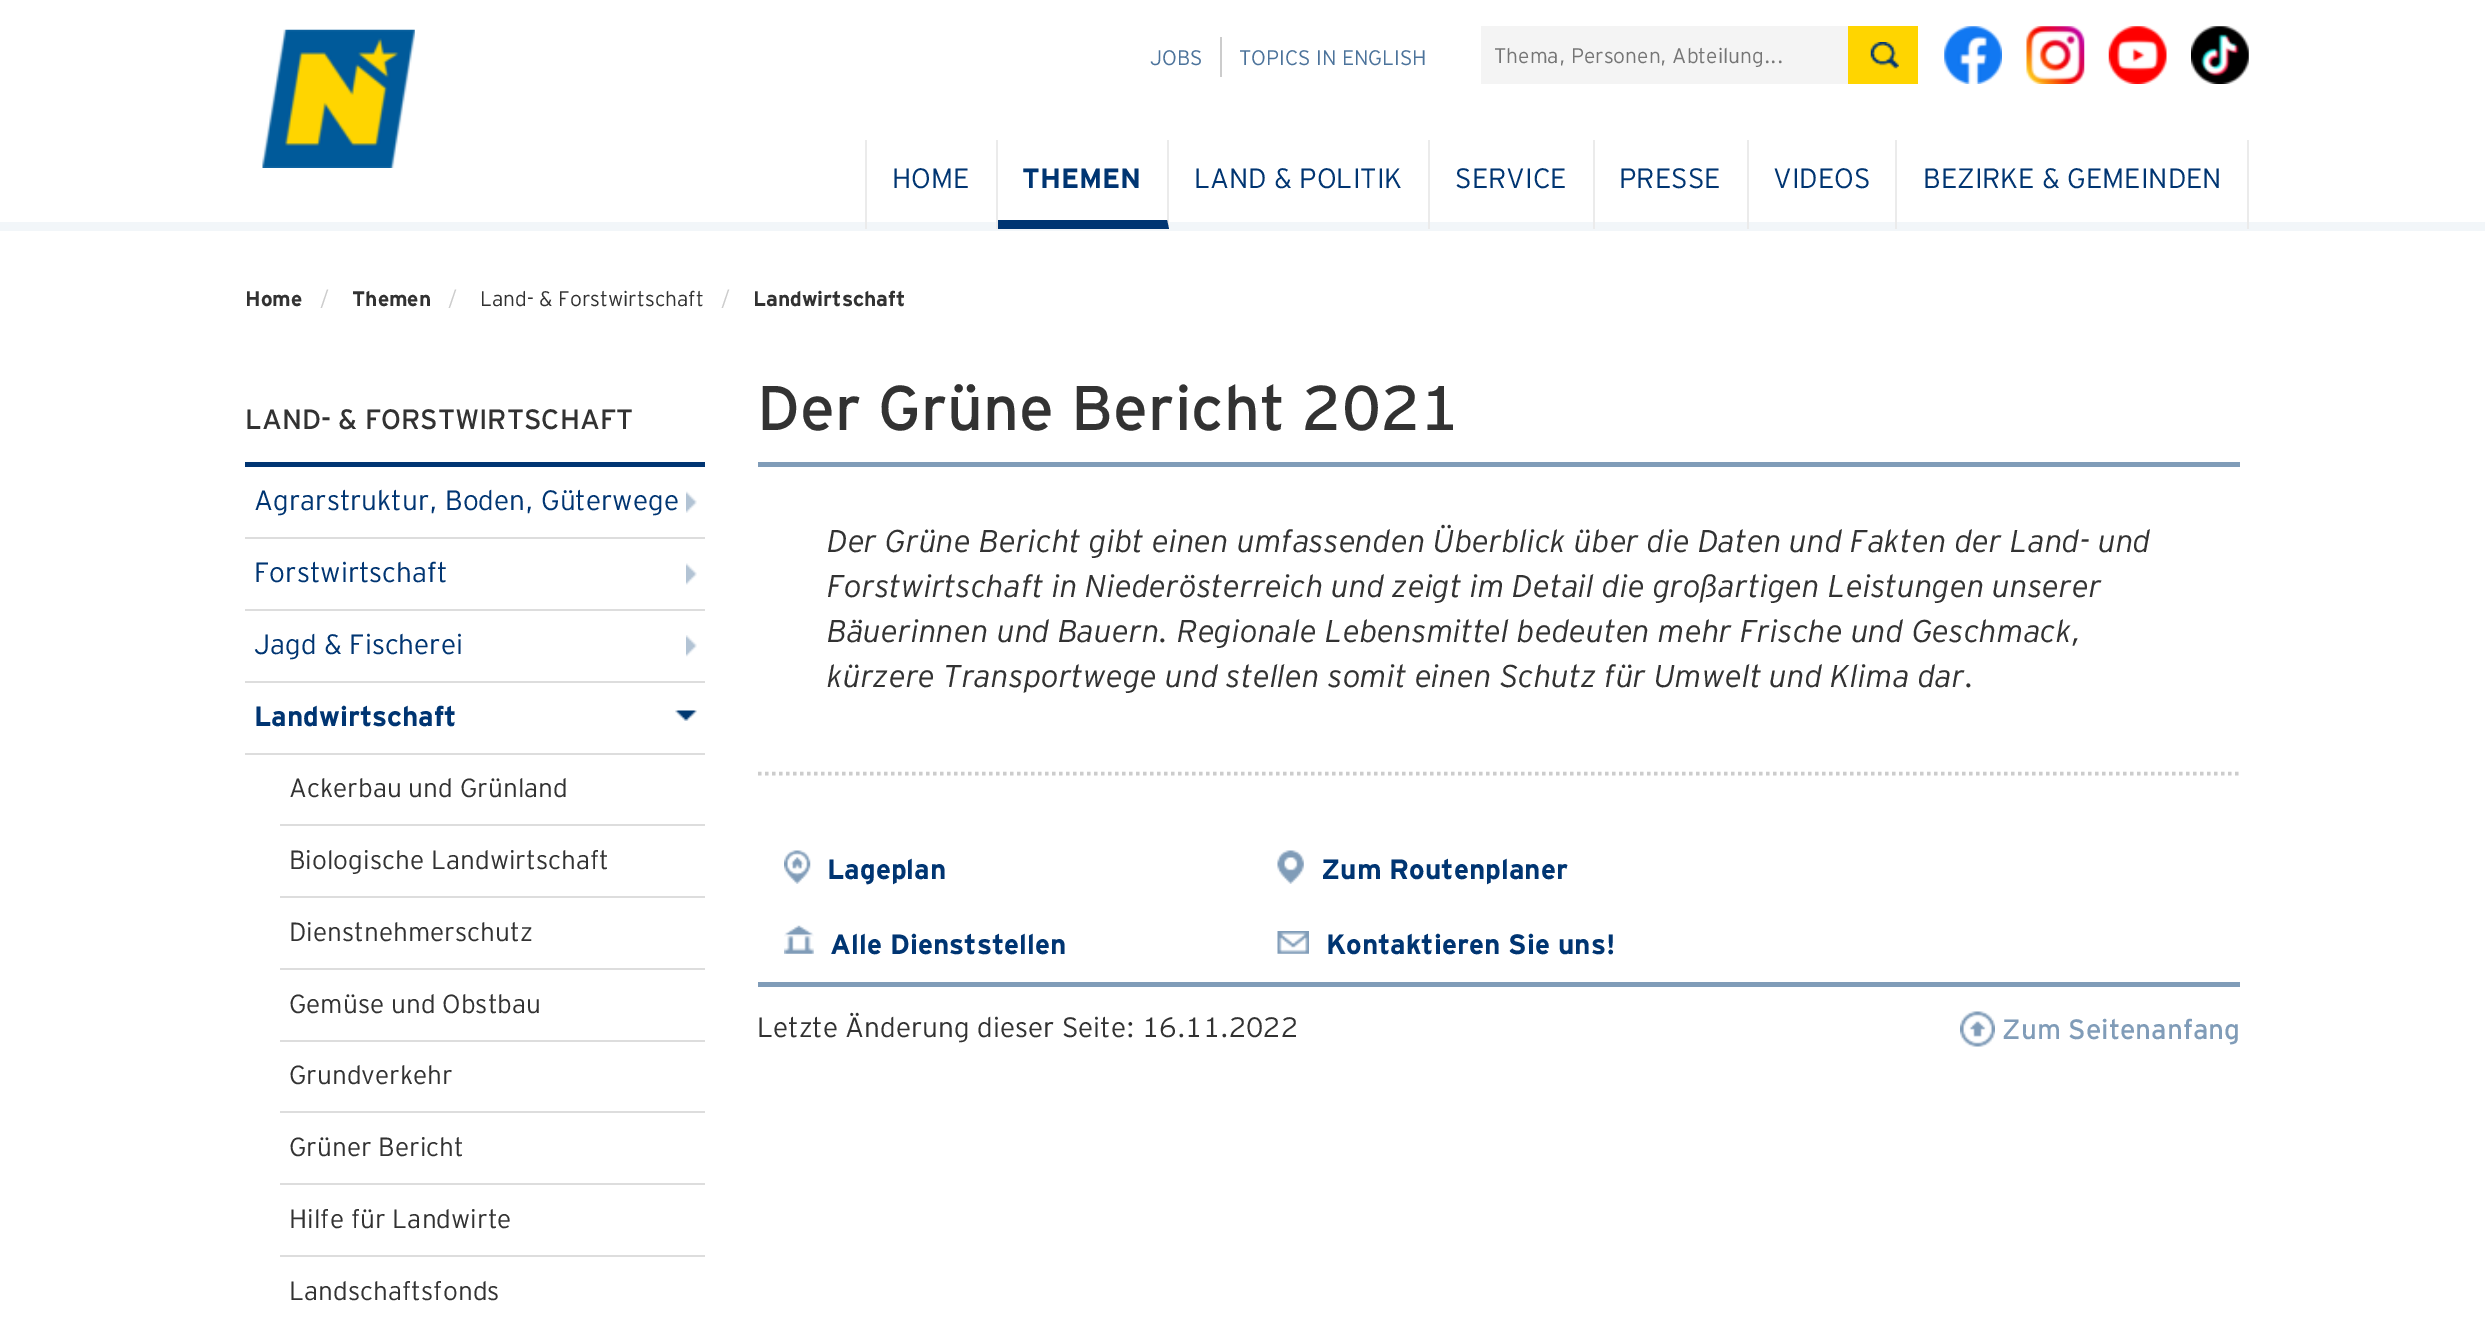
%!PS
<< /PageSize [2485 1322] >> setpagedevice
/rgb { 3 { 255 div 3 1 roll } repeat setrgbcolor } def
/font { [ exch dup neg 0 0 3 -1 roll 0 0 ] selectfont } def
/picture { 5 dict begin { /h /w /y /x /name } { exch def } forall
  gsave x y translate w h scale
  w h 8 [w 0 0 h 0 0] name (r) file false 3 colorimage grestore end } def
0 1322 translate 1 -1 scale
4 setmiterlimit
255 255 255 rgb
0 0 2485 1322 rectfill
242 246 249 rgb
0 222 2485 9 rectfill
(img/1.rgb) 262 29 153 139 picture
[
  [1220 37 2 40 204 204 204]
  [1481 26 367 58 244 244 244]
  [1848 26 70 58 255 213 0]
] { aload pop rgb rectfill } forall
(img/2.rgb) 1870 42 29 27 picture
(img/3.rgb) 1944 26 58 58 picture
(img/4.rgb) 2026 26 59 58 picture
(img/5.rgb) 2108 26 59 58 picture
(img/6.rgb) 2191 26 58 58 picture
235 235 235 rgb
996 140 2 89 rectfill
865 140 2 89 rectfill
1169 140 moveto 1169 229 lineto 1167 220 lineto 1167 140 lineto closepath fill
0 53 114 rgb
1169 229 moveto 998 229 lineto 998 220 lineto 1167 220 lineto closepath fill
[
  [1428 140 2 89 235 235 235]
  [1593 140 2 89 235 235 235]
  [1747 140 2 89 235 235 235]
  [1895 140 2 89 235 235 235]
  [2247 140 2 89 235 235 235]
  [245 462 460 5 0 53 114]
  [245 537 460 2 221 221 221]
] { aload pop rgb rectfill } forall
(img/7.rgb) 686 491 11 22 picture
245 609 460 2 rectfill
(img/8.rgb) 686 563 11 22 picture
245 681 460 2 rectfill
(img/9.rgb) 686 635 11 22 picture
245 753 460 2 rectfill
(img/10.rgb) 675 710 22 11 picture
[
  [280 824 425 2 221 221 221]
  [280 896 425 2 221 221 221]
  [280 968 425 2 221 221 221]
  [280 1040 425 2 221 221 221]
  [280 1111 425 2 221 221 221]
  [280 1183 425 2 221 221 221]
  [280 1255 425 2 221 221 221]
  [758 462 1482 5 128 156 184]
] { aload pop rgb rectfill } forall
204 204 204 rgb
3.5 setlinewidth
[3.5 3.5] 0 setdash
758 773.5 moveto 2240 773.5 lineto stroke
(img/11.rgb) 784 850 27 34 picture
(img/12.rgb) 1277 850 27 34 picture
(img/13.rgb) 784 925 30 29 picture
(img/14.rgb) 1277 931 32 23 picture
128 156 184 rgb
758 982 1482 5 rectfill
(img/15.rgb) 1960 1011 35 36 picture
/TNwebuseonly-Light 21 font
76 115 155 rgb
1150 65 moveto (JOBS) show
1239 65 moveto (TOPICS IN ENGLISH) show
117 117 117 rgb
1494 63 moveto (Thema, Personen, Abteilung...) show
/TNwebuseonly-Light 28 font
0 53 114 rgb
892 188 moveto (HOME) show
/TNwebuseonly-Bold 28 font
1022 188 moveto (THEMEN) show
/TNwebuseonly-Light 28 font
[
  [(LAND & POLITIK) 1194 188]
  [(SERVICE) 1455 188]
  [(PRESSE) 1619 188]
  [(VIDEOS) 1773 188]
  [(BEZIRKE & GEMEINDEN) 1923 188]
] { aload pop moveto show } forall
/TNwebuseonly-Bold 21 font
50 50 50 rgb
245 306 moveto (Home) show
/TNwebuseonly-Light 21 font
204 204 204 rgb
320 306 moveto (/) show
/TNwebuseonly-Bold 21 font
50 50 50 rgb
352 306 moveto (Themen) show
/TNwebuseonly-Light 21 font
204 204 204 rgb
448 306 moveto (/) show
50 50 50 rgb
480 306 moveto (Land- & Forstwirtschaft) show
204 204 204 rgb
721 306 moveto (/) show
/TNwebuseonly-Bold 21 font
50 50 50 rgb
753 306 moveto (Landwirtschaft) show
/TNwebuseonly-Regular 28 font
245 429 moveto (LAND- & FORSTWIRTSCHAFT) show
/TNwebuseonly-Light 28 font
0 53 114 rgb
[
  [(Agrarstruktur, Boden, Güterwege) 254 510]
  [(Forstwirtschaft) 254 582]
  [(Jagd & Fischerei) 254 654]
] { aload pop moveto show } forall
/TNwebuseonly-Bold 28 font
254 726 moveto (Landwirtschaft) show
/TNwebuseonly-Light 26.25 font
50 50 50 rgb
[
  [(Ackerbau und Grünland) 289 797]
  [(Biologische Landwirtschaft) 289 869]
  [(Dienstnehmerschutz) 289 941]
  [(Gemüse und Obstbau) 289 1013]
  [(Grundverkehr) 289 1084]
  [(Grüner Bericht) 289 1156]
  [(Hilfe für Landwirte) 289 1228]
  [(Landschaftsfonds) 289 1300]
] { aload pop moveto show } forall
/TNwebuseonly-Regular 63 font
757 430 moveto (Der Grüne Bericht 2021) show
/TNwebuseonly-LightItalic 31.5 font
[
  [(Der Grüne Bericht gibt einen umfassenden Überblick über die Daten und Fakten der Land- und) 827 552]
  [(Forstwirtschaft in Niederösterreich und zeigt im Detail die großartigen Leistungen unserer) 827 597]
  [(Bäuerinnen und Bauern. Regionale Lebensmittel bedeuten mehr Frische und Geschmack,) 827 642]
  [(kürzere Transportwege und stellen somit einen Schutz für Umwelt und Klima dar.) 827 687]
] { aload pop moveto show } forall
/TNwebuseonly-Bold 28 font
0 53 114 rgb
[
  [(Lageplan) 827 879]
  [(Zum Routenplaner) 1321 879]
  [(Alle Dienststellen) 830 954]
  [(Kontaktieren Sie uns!) 1326 954]
] { aload pop moveto show } forall
/TNwebuseonly-Light 28 font
50 50 50 rgb
757 1037 moveto (Letzte Änderung dieser Seite: 16.11.2022) show
/TNwebuseonly-Regular 28 font
128 156 184 rgb
2002 1039 moveto (Zum Seitenanfang) show
showpage
